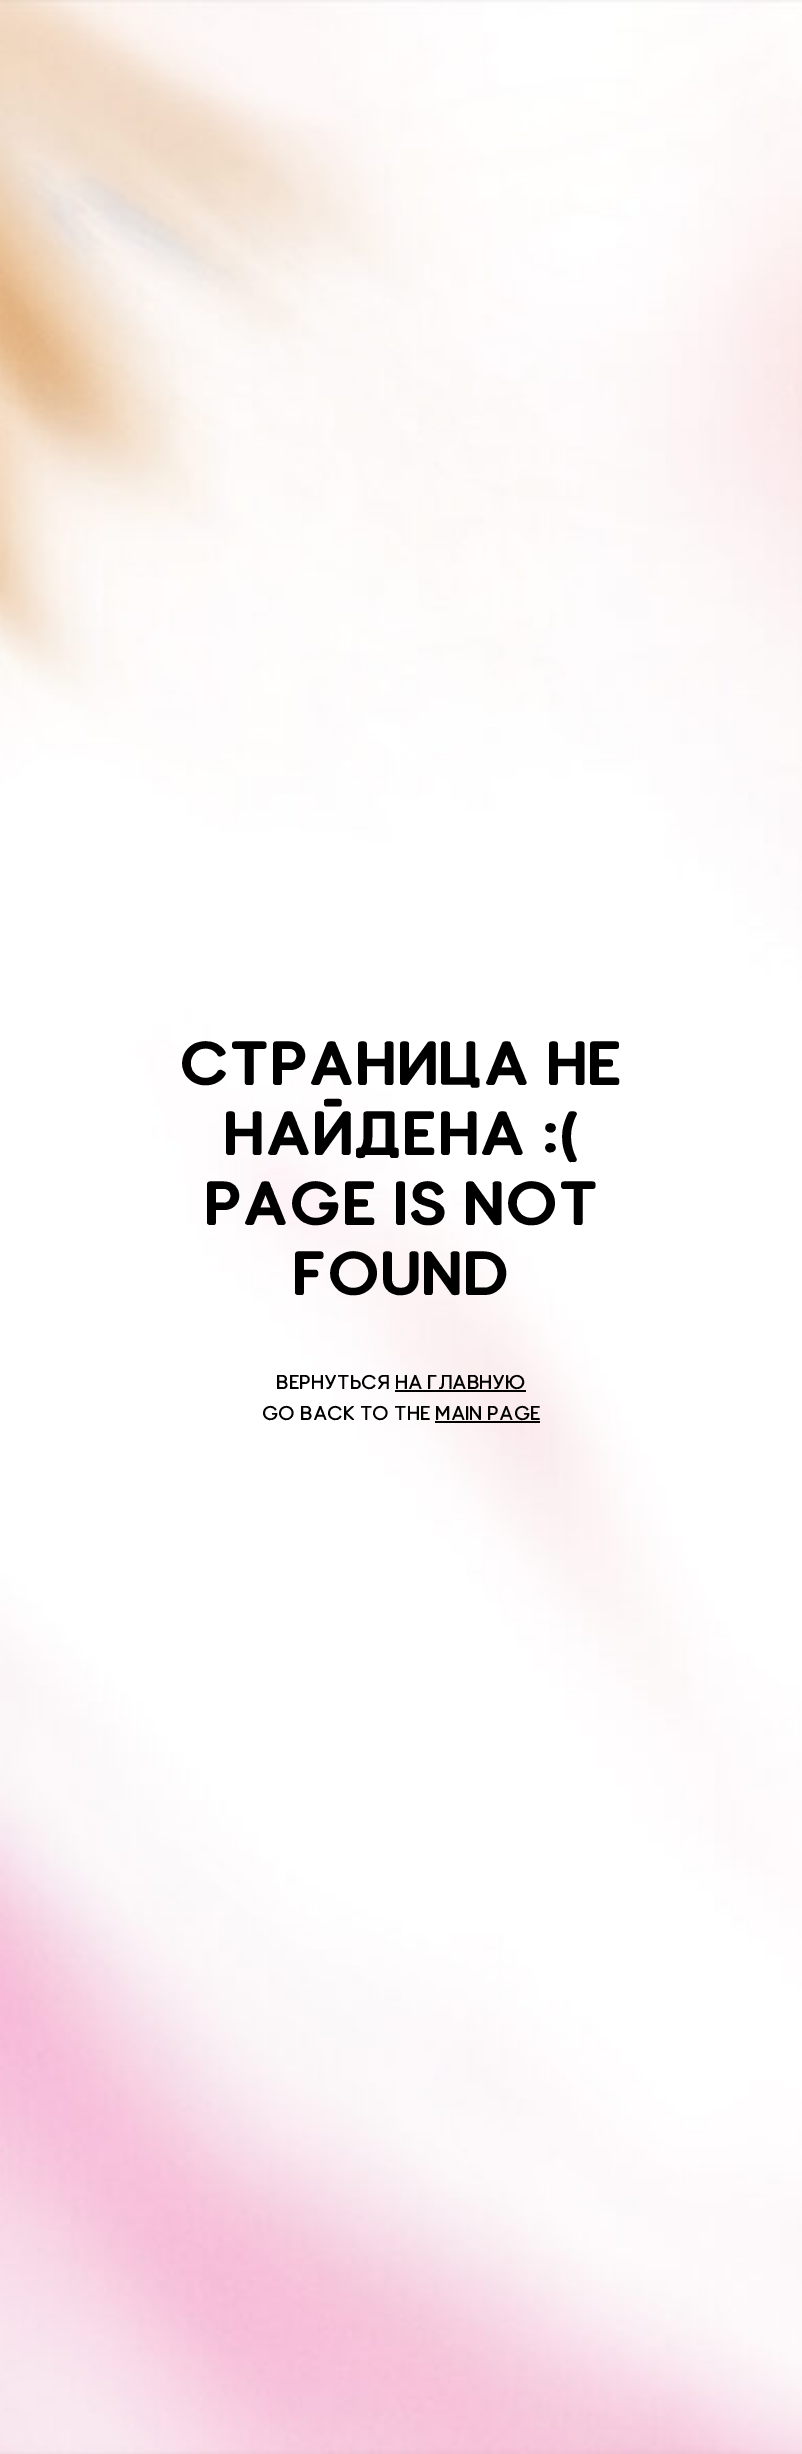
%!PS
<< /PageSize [802 2454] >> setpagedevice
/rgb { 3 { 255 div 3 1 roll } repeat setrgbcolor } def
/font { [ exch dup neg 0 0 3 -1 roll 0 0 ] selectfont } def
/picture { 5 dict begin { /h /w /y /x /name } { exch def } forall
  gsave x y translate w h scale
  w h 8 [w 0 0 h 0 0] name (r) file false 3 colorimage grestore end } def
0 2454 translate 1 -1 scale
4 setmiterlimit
255 255 255 rgb
0 0 802 2454 rectfill
(img/1.rgb) 0 0 802 2454 picture
0 0 0 rgb
395 1390 131 2 rectfill
435 1421 105 2 rectfill
/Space-Bold 62 font
[
  [(СТРАНИЦА НЕ) 179 1085]
  [(НАЙДЕНА :\() 223 1155]
  [(PAGE IS NOT) 204 1225]
  [(FOUND) 292 1295]
] { aload pop moveto show } forall
/Space-Medium 20 font
276 1389 moveto (ВЕРНУТЬСЯ НА ГЛАВНУЮ) show
262 1420 moveto (GO BACK TO THE MAIN PAGE) show
showpage
